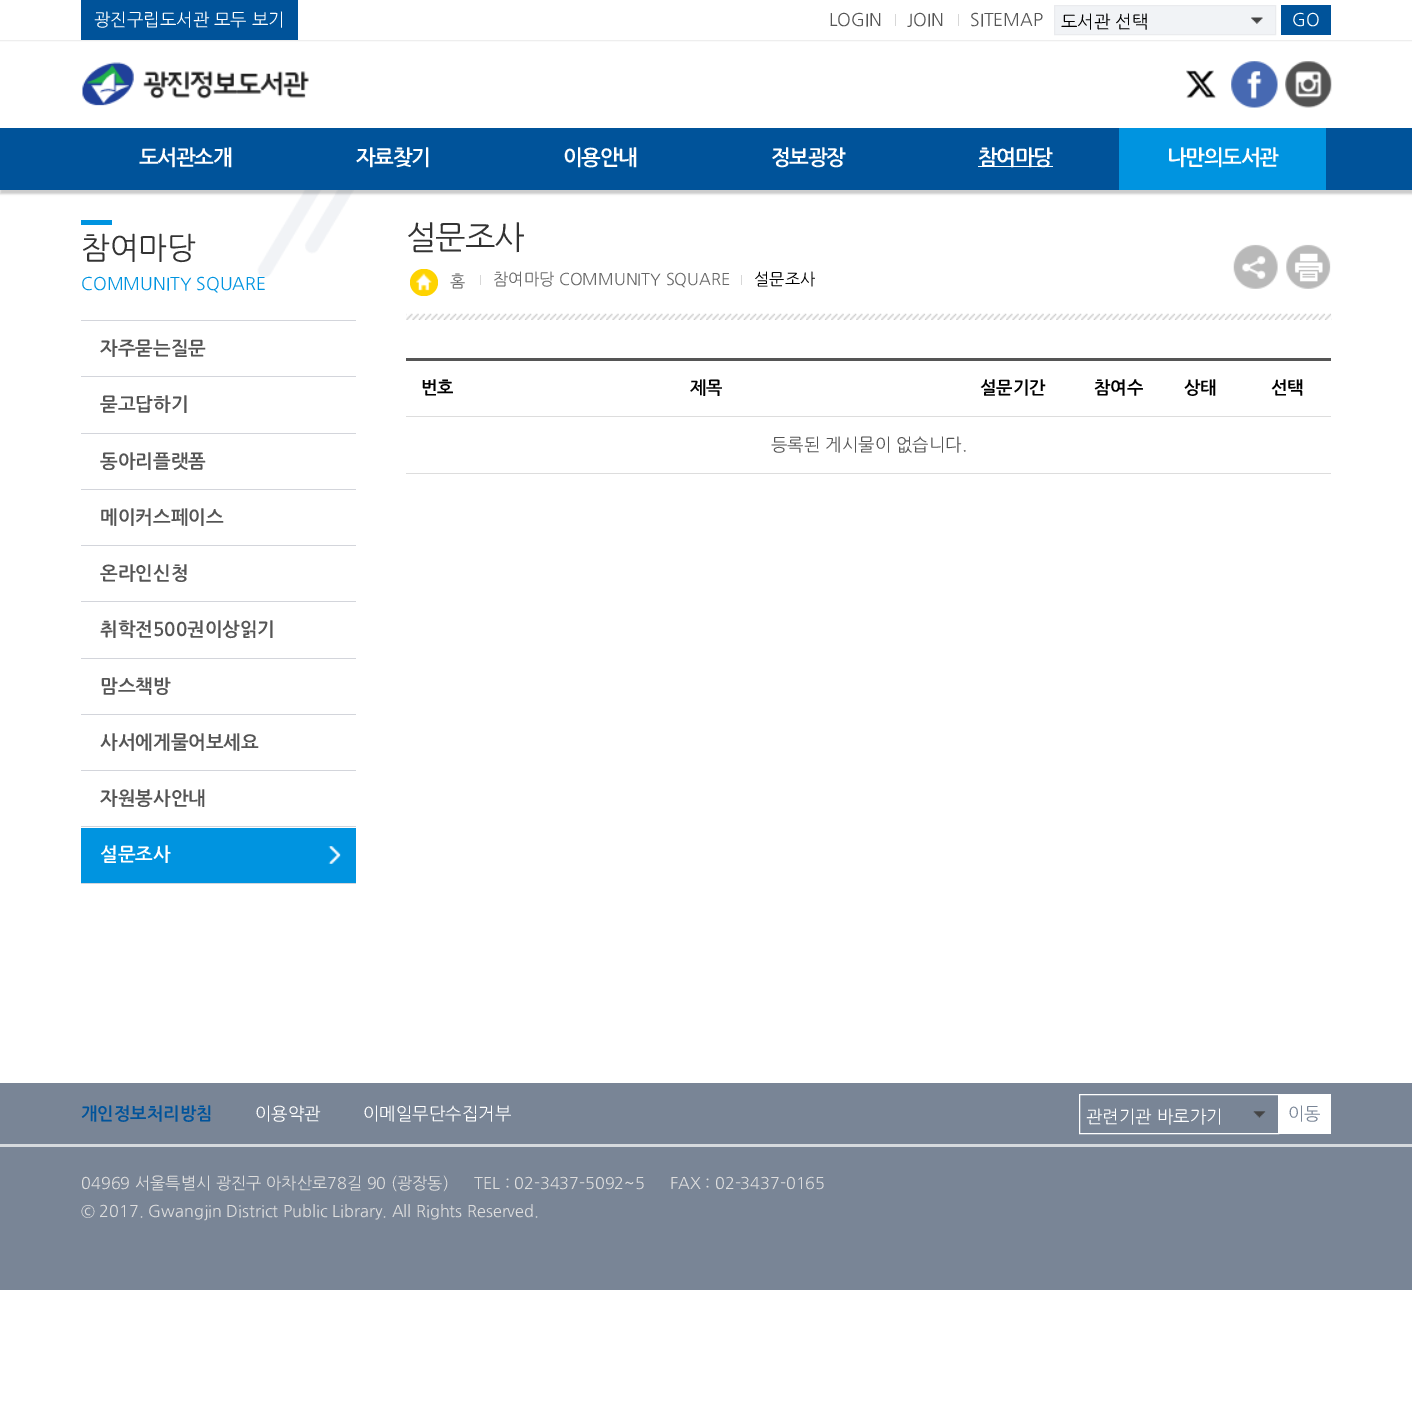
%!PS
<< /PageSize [1412 1425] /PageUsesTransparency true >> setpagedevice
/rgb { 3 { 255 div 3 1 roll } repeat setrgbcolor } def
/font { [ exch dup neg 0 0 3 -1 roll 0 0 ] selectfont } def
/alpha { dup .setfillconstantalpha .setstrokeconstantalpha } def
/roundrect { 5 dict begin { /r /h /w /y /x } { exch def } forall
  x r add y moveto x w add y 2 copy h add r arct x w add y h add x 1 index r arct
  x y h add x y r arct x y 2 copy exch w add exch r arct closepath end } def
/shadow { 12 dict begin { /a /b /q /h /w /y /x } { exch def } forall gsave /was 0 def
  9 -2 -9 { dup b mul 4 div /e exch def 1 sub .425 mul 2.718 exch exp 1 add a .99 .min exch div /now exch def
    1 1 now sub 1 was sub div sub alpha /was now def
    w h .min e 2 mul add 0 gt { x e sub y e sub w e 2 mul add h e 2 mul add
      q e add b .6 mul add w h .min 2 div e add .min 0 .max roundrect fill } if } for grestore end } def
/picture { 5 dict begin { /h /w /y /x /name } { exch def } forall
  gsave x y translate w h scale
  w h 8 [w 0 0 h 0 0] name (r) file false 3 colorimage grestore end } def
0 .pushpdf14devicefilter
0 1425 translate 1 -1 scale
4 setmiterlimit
255 255 255 rgb
0 0 1412 1425 rectfill
(img/1.rgb) 0 40 1412 2 picture
[
  [81 0 217 40 0 83 154]
  [895 14 1 12 215 215 215]
  [958 14 1 12 215 215 215]
  [1055 6 220 28 241 243 246]
] { aload pop rgb rectfill } forall
(img/2.rgb) 1251 17 12 7 picture
234 235 238 rgb
1054.5 5.5 221 29 rectstroke
0 83 154 rgb
1281 5 50 30 rectfill
(img/3.rgb) 82 62 227 44 picture
(img/4.rgb) 1186 70 31 29 picture
(img/5.rgb) 1231 61 47 47 picture
(img/6.rgb) 1285 61 47 47 picture
(img/7.rgb) 257 190 97 88 picture
0 0 0 rgb
0 131 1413 63 0 1 0.2 shadow
[
  [0 128 1412 62 0 83 154]
  [978 166 75 1 255 255 255]
  [1119 128 207 62 0 148 224]
  [81 220 31 5 0 148 224]
  [81 320 275 1 211 213 219]
  [81 376 275 1 211 213 219]
  [81 433 275 1 211 213 219]
  [81 489 275 1 211 213 219]
  [81 545 275 1 211 213 219]
  [81 601 275 1 211 213 219]
  [81 658 275 1 211 213 219]
  [81 714 275 1 211 213 219]
  [81 770 275 1 211 213 219]
  [81 826 275 1 211 213 219]
  [81 883 275 1 211 213 219]
  [81 828 275 55 0 148 224]
] { aload pop rgb rectfill } forall
(img/8.rgb) 328 846 13 18 picture
(img/9.rgb) 406 313 926 7 picture
254 211 0 rgb
410 269 28 27 13.5 roundrect fill
(img/10.rgb) 416 273 16 18 picture
215 215 215 rgb
480 275 1 10 rectfill
741 275 1 10 rectfill
(img/11.rgb) 1233 244 45 45 picture
(img/12.rgb) 1286 244 45 45 picture
[
  [406 358 925 3 85 85 85]
  [406 416 925 1 221 221 221]
  [406 473 925 1 221 221 221]
  [0 1083 1412 207 121 133 150]
  [0 1144 1412 3 214 218 222]
] { aload pop rgb rectfill } forall
(img/13.rgb) 1253 1111 13 7 picture
255 255 255 rgb
1079.5 1094.5 199 39 rectstroke
1279 1094 52 40 rectfill
/NanumGothic-Regular 17.5 font
94 26 moveto (광진구립도서관 모두 보기) show
85 85 85 rgb
[
  [(LOGIN) 829 26]
  [(JOIN) 907 26]
  [(SITEMAP) 970 26]
] { aload pop moveto show } forall
0 0 0 rgb
1061 28 moveto (도서관 선택) show
255 255 255 rgb
1292 26 moveto (GO) show
/NanumGothic-Bold 21 font
139 165 moveto -1.25 0 (도서관소개) ashow
356 165 moveto -1.25 0 (자료찾기) ashow
563 165 moveto -1.25 0 (이용안내) ashow
771 165 moveto -1.25 0 (정보광장) ashow
978 165 moveto -1.25 0 (참여마당) ashow
1167 165 moveto -1.25 0 (나만의도서관) ashow
/NanumGothic-Regular 30.5 font
51 51 51 rgb
81 259 moveto (참여마당) show
/NanumGothic-Regular 17.5 font
0 148 224 rgb
81 290 moveto (COMMUNITY SQUARE) show
/NanumGothic-Bold 18.75 font
85 85 85 rgb
[
  [(자주묻는질문) 100 355]
  [(묻고답하기) 100 411]
  [(동아리플랫폼) 100 468]
  [(메이커스페이스) 100 524]
  [(온라인신청) 100 580]
  [(취학전500권이상읽기) 100 636]
  [(맘스책방) 100 693]
  [(사서에게물어보세요) 100 749]
  [(자원봉사안내) 100 805]
] { aload pop moveto show } forall
255 255 255 rgb
100 861 moveto (설문조사) show
/NanumGothic-Regular 32.5 font
51 51 51 rgb
406 249 moveto -1.25 0 (설문조사) ashow
/NanumGothic-Regular 16.25 font
102 102 102 rgb
450 287 moveto (홈) show
493 285 moveto (참여마당 COMMUNITY SQUARE) show
0 0 0 rgb
754 285 moveto (설문조사) show
/NanumGothic-Bold 17.5 font
[
  [(번호) 421 394]
  [(제목) 690 394]
  [(설문기간) 980 394]
  [(참여수) 1094 394]
  [(상태) 1184 394]
  [(선택) 1271 394]
] { aload pop moveto show } forall
/NanumGothic-Regular 17.5 font
85 85 85 rgb
771 451 moveto (등록된 게시물이 없습니다.) show
/NanumGothic-Bold 17.5 font
0 83 154 rgb
81 1120 moveto (개인정보처리방침) show
/NanumGothic-Regular 17.5 font
255 255 255 rgb
[
  [(이용약관) 255 1120]
  [(이메일무단수집거부) 363 1120]
  [(관련기관 바로가기) 1086 1123]
] { aload pop moveto show } forall
121 133 150 rgb
1288 1120 moveto (이동) show
/NanumGothic-Regular 16.25 font
222 222 222 rgb
[
  [(04969 서울특별시 광진구 아차산로78길 90 \(광장동\)) 81 1189]
  [(TEL : 02-3437-5092~5) 474 1189]
  [(FAX : 02-3437-0165) 670 1189]
  [(© 2017. Gwangjin District Public Library. All Rights Reserved.) 81 1217]
] { aload pop moveto show } forall
.poppdf14devicefilter showpage
